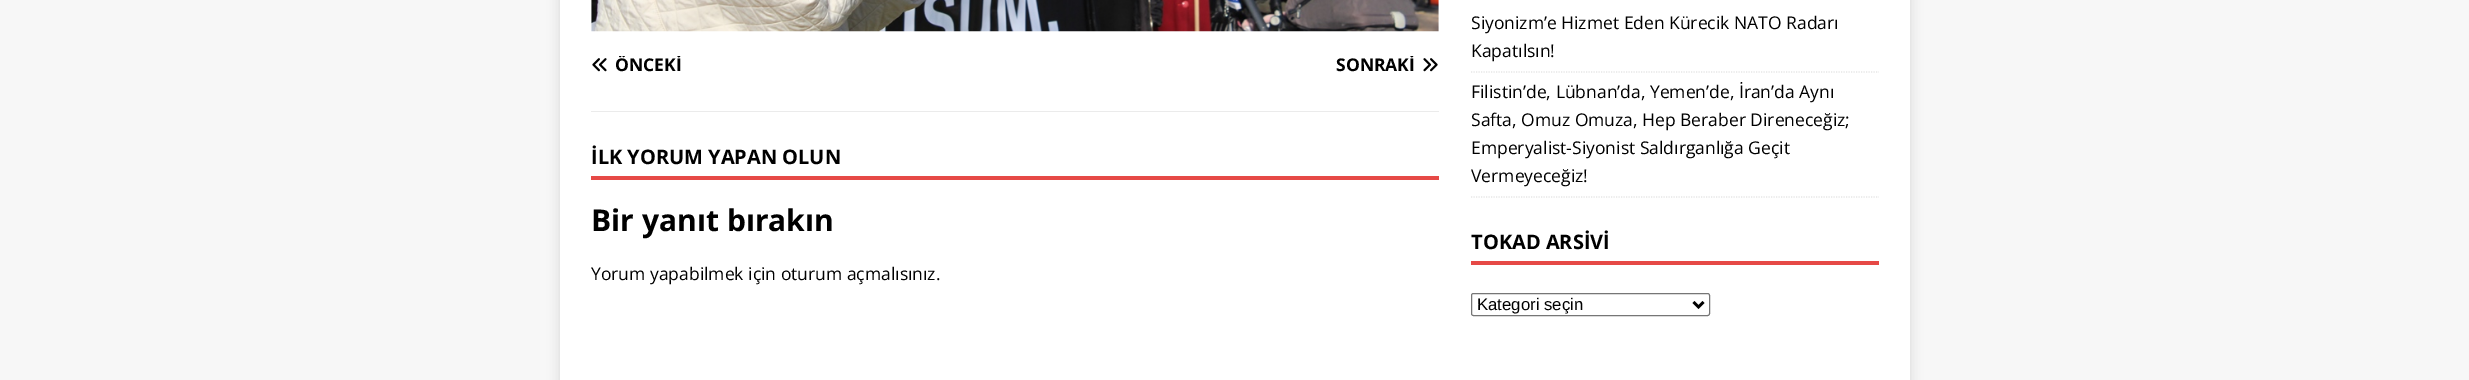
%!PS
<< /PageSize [2469 380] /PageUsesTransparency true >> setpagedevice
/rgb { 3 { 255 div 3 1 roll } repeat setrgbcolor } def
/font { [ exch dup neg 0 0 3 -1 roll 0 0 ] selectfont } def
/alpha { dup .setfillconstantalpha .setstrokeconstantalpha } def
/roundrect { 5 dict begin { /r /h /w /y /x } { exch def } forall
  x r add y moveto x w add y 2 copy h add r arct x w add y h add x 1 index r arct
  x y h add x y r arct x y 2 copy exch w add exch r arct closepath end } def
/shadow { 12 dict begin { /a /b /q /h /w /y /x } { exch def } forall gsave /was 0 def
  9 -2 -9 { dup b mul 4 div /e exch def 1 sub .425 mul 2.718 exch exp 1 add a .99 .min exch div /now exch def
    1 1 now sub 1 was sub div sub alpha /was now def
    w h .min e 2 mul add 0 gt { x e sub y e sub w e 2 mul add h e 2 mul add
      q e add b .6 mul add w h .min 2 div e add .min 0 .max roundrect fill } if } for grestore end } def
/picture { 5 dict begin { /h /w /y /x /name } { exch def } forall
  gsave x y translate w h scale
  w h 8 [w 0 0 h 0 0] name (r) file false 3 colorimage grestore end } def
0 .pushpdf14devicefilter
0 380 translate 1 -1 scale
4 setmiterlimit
247 247 247 rgb
0 0 2469 380 rectfill
50 50 50 rgb
560 -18 1350 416 0 6 0.17 shadow
255 255 255 rgb
560 0 1350 380 rectfill
(img/1.rgb) 591 0 848 32 picture
235 235 235 rgb
591 111 848 1 rectfill
(img/2.rgb) 592 58 15 14 picture
(img/3.rgb) 1423 58 15 14 picture
230 73 70 rgb
591 176 848 4 rectfill
229 229 229 rgb
1.2 setlinewidth
[1.25 1.25] 0 setdash
1471 72 moveto 1879 72 lineto stroke
1471 197 moveto 1879 197 lineto stroke
230 73 70 rgb
1471 261 408 4 rectfill
118 118 118 rgb
1 setlinewidth
[] 0 setdash
1471.5 293.5 238 22 2 roundrect stroke
0 0 0 rgb
2.5 setlinewidth
1693.5 302 moveto 1698.5 307 lineto 1703.5 302 lineto stroke
gsave
591 56 414 18 rectclip
/OpenSans-Bold 17.5 font
615 71 moveto (ÖNCEKİ) show
grestore
gsave
1026 56 413 18 rectclip
/OpenSans-Bold 17.5 font
1336 71 moveto (SONRAKİ) show
grestore
/OpenSans-Bold 20 font
591 164 moveto (İLK YORUM YAPAN OLUN) show
/OpenSans-Bold 30 font
591 231 moveto (Bir yanıt bırakın) show
/OpenSans-Regular 17.5 font
[
  [(Yorum yapabilmek için oturum açmalısınız.) 591 280]
  [(Siyonizm’e Hizmet Eden Kürecik NATO Radarı) 1471 29]
  [(Kapatılsın!) 1471 57]
  [(Filistin’de, Lübnan’da, Yemen’de, İran’da Aynı) 1471 98]
  [(Safta, Omuz Omuza, Hep Beraber Direneceğiz;) 1471 126]
  [(Emperyalist-Siyonist Saldırganlığa Geçit) 1471 154]
  [(Vermeyeceğiz!) 1471 182]
] { aload pop moveto show } forall
/OpenSans-Bold 20 font
1471 249 moveto (TOKAD ARSİVİ) show
/LiberationSans-Regular 16.75 font
1477 310 moveto (Kategori seçin) show
.poppdf14devicefilter showpage
